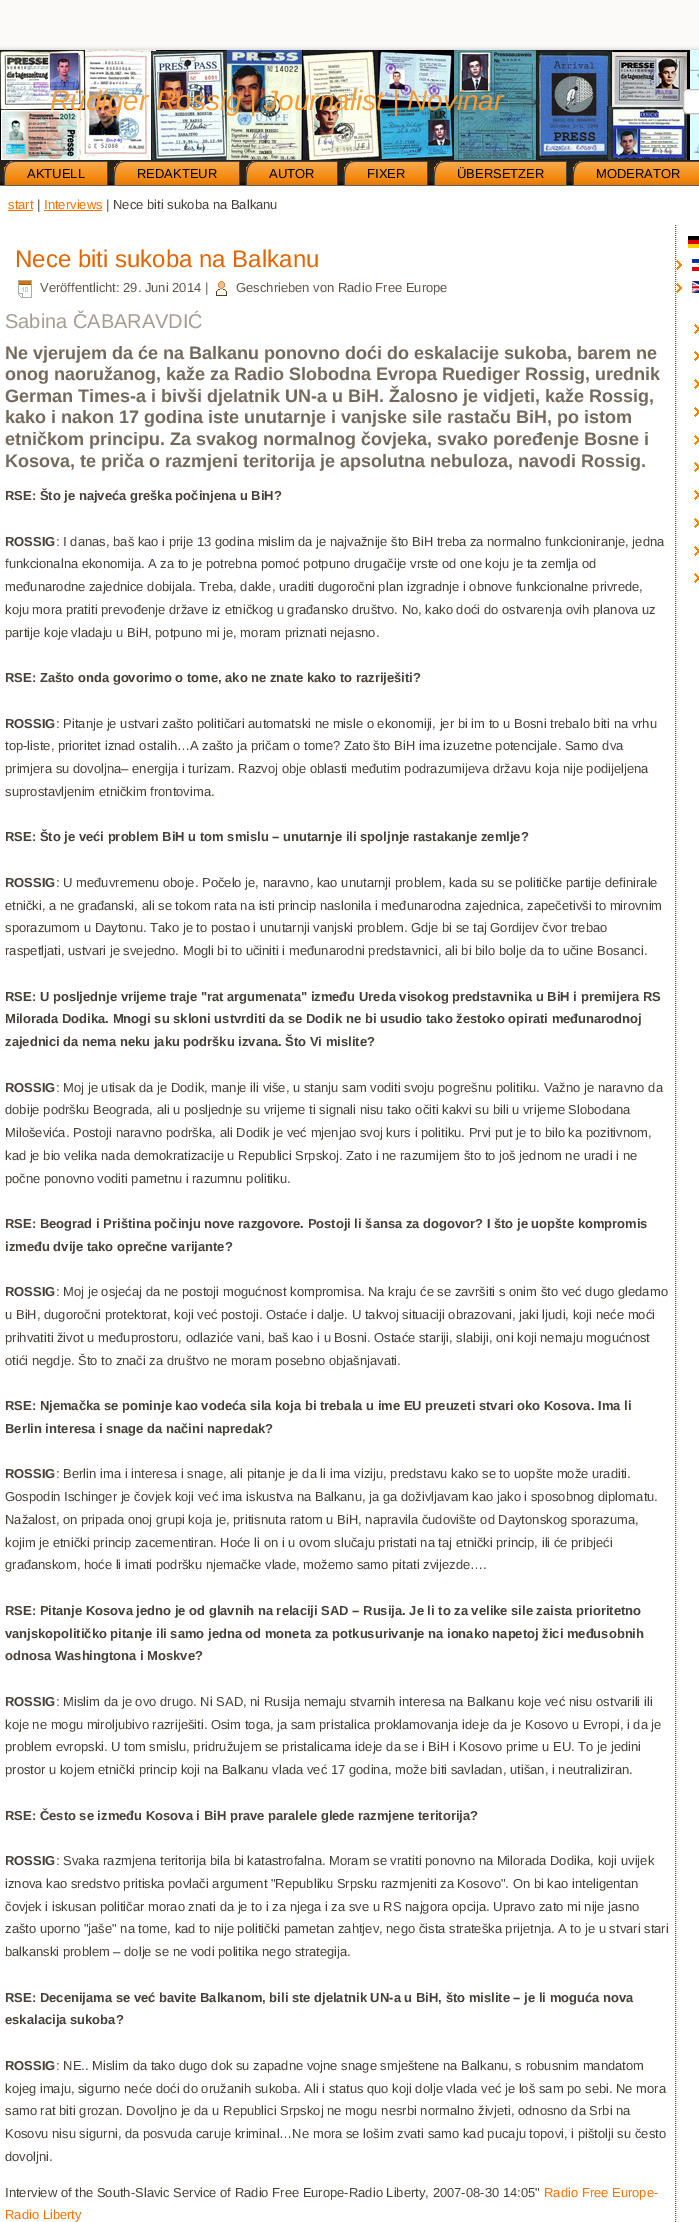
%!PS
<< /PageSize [699 2222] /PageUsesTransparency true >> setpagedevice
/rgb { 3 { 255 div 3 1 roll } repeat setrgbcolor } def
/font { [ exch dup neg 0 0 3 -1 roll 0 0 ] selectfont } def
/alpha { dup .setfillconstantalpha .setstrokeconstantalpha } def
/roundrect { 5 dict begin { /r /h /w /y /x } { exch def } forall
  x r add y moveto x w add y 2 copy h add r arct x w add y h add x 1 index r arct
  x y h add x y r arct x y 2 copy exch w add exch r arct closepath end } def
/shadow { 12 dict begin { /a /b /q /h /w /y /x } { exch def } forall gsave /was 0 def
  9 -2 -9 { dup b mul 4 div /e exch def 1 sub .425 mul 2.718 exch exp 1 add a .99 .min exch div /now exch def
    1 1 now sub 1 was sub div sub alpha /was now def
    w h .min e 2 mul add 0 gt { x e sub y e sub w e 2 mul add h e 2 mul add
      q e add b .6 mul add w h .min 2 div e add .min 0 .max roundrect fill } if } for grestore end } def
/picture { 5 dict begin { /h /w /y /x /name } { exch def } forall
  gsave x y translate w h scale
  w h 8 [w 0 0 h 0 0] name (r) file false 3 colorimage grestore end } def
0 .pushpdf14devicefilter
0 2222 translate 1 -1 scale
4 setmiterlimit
251 250 249 rgb
0 0 699 2222 rectfill
0 0 0 rgb
-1 49 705 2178 0 1.5 0.15 shadow
255 255 255 rgb
0 186 699 2036 rectfill
(img/1.rgb) 0 50 699 110 picture
683.5 89.5 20 24 3.5 roundrect gsave fill grestore
194 187 178 rgb
stroke
gsave 0 160 moveto 699 160 lineto 699 185 lineto 0 185 lineto closepath clip newpath
<< /ShadingType 2 /ColorSpace /DeviceRGB /Coords [450 160 450 186] /Extend [true true] /Function << /FunctionType 3 /Domain [0 1] /Functions [<< /FunctionType 2 /Domain [0 1] /C0 [0.145 0.129 0.114] /C1 [0.157 0.141 0.122] /N 1 >> << /FunctionType 2 /Domain [0 1] /C0 [0.157 0.141 0.122] /C1 [0.157 0.141 0.122] /N 1 >> << /FunctionType 2 /Domain [0 1] /C0 [0.157 0.141 0.122] /C1 [0.024 0.02 0.016] /N 1 >>] /Bounds [0.4 0.8] /Encode [0 1 0 1 0 1] >> >> shfill grestore
103 93 81 rgb
0 185 699 1 rectfill
gsave 15 161 moveto 108 161 lineto 108 185 lineto 4 185 lineto 4 172 lineto 4 166 9 161 15 161 curveto closepath clip newpath
<< /ShadingType 2 /ColorSpace /DeviceRGB /Coords [56 161 56 185] /Extend [true true] /Function << /FunctionType 3 /Domain [0 1] /Functions [<< /FunctionType 2 /Domain [0 1] /C0 [0.973 0.671 0.329] /C1 [0.961 0.529 0.039] /N 1 >> << /FunctionType 2 /Domain [0 1] /C0 [0.961 0.529 0.039] /C1 [0.863 0.478 0.035] /N 1 >>] /Bounds [0.75] /Encode [0 1 0 1] >> >> shfill grestore
77 69 61 rgb
15 161 moveto 108 161 lineto 108 185 lineto 4 185 lineto 4 176 2 161 15 161 curveto closepath 15 162 moveto 107 162 lineto 107 185 lineto 5 185 lineto 5 177 3 162 15 162 curveto closepath eofill
gsave 125 161 moveto 240 161 lineto 240 185 lineto 114 185 lineto 114 172 lineto 114 166 119 161 125 161 curveto closepath clip newpath
<< /ShadingType 2 /ColorSpace /DeviceRGB /Coords [177 161 177 185] /Extend [true true] /Function << /FunctionType 3 /Domain [0 1] /Functions [<< /FunctionType 2 /Domain [0 1] /C0 [0.973 0.671 0.329] /C1 [0.961 0.529 0.039] /N 1 >> << /FunctionType 2 /Domain [0 1] /C0 [0.961 0.529 0.039] /C1 [0.863 0.478 0.035] /N 1 >>] /Bounds [0.75] /Encode [0 1 0 1] >> >> shfill grestore
125 161 moveto 240 161 lineto 240 185 lineto 114 185 lineto 114 176 112 161 125 161 curveto closepath 125 162 moveto 239 162 lineto 239 185 lineto 115 185 lineto 115 177 113 162 125 162 curveto closepath eofill
gsave 257 161 moveto 338 161 lineto 338 185 lineto 246 185 lineto 246 172 lineto 246 166 251 161 257 161 curveto closepath clip newpath
<< /ShadingType 2 /ColorSpace /DeviceRGB /Coords [292 161 292 185] /Extend [true true] /Function << /FunctionType 3 /Domain [0 1] /Functions [<< /FunctionType 2 /Domain [0 1] /C0 [0.973 0.671 0.329] /C1 [0.961 0.529 0.039] /N 1 >> << /FunctionType 2 /Domain [0 1] /C0 [0.961 0.529 0.039] /C1 [0.863 0.478 0.035] /N 1 >>] /Bounds [0.75] /Encode [0 1 0 1] >> >> shfill grestore
257 161 moveto 338 161 lineto 338 185 lineto 246 185 lineto 246 176 244 161 257 161 curveto closepath 257 162 moveto 337 162 lineto 337 185 lineto 247 185 lineto 247 177 245 162 257 162 curveto closepath eofill
gsave 355 161 moveto 428 161 lineto 428 185 lineto 344 185 lineto 344 172 lineto 344 166 349 161 355 161 curveto closepath clip newpath
<< /ShadingType 2 /ColorSpace /DeviceRGB /Coords [386 161 386 185] /Extend [true true] /Function << /FunctionType 3 /Domain [0 1] /Functions [<< /FunctionType 2 /Domain [0 1] /C0 [0.973 0.671 0.329] /C1 [0.961 0.529 0.039] /N 1 >> << /FunctionType 2 /Domain [0 1] /C0 [0.961 0.529 0.039] /C1 [0.863 0.478 0.035] /N 1 >>] /Bounds [0.75] /Encode [0 1 0 1] >> >> shfill grestore
355 161 moveto 428 161 lineto 428 185 lineto 344 185 lineto 344 176 342 161 355 161 curveto closepath 355 162 moveto 427 162 lineto 427 185 lineto 345 185 lineto 345 177 343 162 355 162 curveto closepath eofill
gsave 445 161 moveto 567 161 lineto 567 185 lineto 434 185 lineto 434 172 lineto 434 166 439 161 445 161 curveto closepath clip newpath
<< /ShadingType 2 /ColorSpace /DeviceRGB /Coords [501 161 501 185] /Extend [true true] /Function << /FunctionType 3 /Domain [0 1] /Functions [<< /FunctionType 2 /Domain [0 1] /C0 [0.973 0.671 0.329] /C1 [0.961 0.529 0.039] /N 1 >> << /FunctionType 2 /Domain [0 1] /C0 [0.961 0.529 0.039] /C1 [0.863 0.478 0.035] /N 1 >>] /Bounds [0.75] /Encode [0 1 0 1] >> >> shfill grestore
445 161 moveto 567 161 lineto 567 185 lineto 434 185 lineto 434 176 432 161 445 161 curveto closepath 445 162 moveto 566 162 lineto 566 185 lineto 435 185 lineto 435 177 433 162 445 162 curveto closepath eofill
gsave 584 161 moveto 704 161 lineto 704 185 lineto 573 185 lineto 573 172 lineto 573 166 578 161 584 161 curveto closepath clip newpath
<< /ShadingType 2 /ColorSpace /DeviceRGB /Coords [639 161 639 185] /Extend [true true] /Function << /FunctionType 3 /Domain [0 1] /Functions [<< /FunctionType 2 /Domain [0 1] /C0 [0.973 0.671 0.329] /C1 [0.961 0.529 0.039] /N 1 >> << /FunctionType 2 /Domain [0 1] /C0 [0.961 0.529 0.039] /C1 [0.863 0.478 0.035] /N 1 >>] /Bounds [0.75] /Encode [0 1 0 1] >> >> shfill grestore
584 161 moveto 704 161 lineto 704 185 lineto 573 185 lineto 573 176 571 161 584 161 curveto closepath 584 162 moveto 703 162 lineto 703 185 lineto 574 185 lineto 574 177 572 162 584 162 curveto closepath eofill
252 111 3 rgb
8 210 25 1 rectfill
44 210 58 1 rectfill
(img/2.rgb) 18 280 14 18 picture
(img/3.rgb) 216 281 11 15 picture
103 93 81 rgb
[1 1] 0 setdash
675.5 225 moveto 675.5 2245 lineto stroke
(img/4.rgb) 688 236 11 12 picture
(img/5.rgb) 676 260 6 10 picture
(img/6.rgb) 692 259 7 12 picture
(img/5.rgb) 676 283 6 10 picture
(img/7.rgb) 692 281 7 12 picture
(img/8.rgb) 694 324 5 10 picture
(img/8.rgb) 694 351 5 10 picture
(img/8.rgb) 694 379 5 10 picture
(img/8.rgb) 694 407 5 10 picture
(img/8.rgb) 694 435 5 10 picture
(img/8.rgb) 694 462 5 10 picture
(img/8.rgb) 694 490 5 10 picture
(img/8.rgb) 694 518 5 10 picture
(img/8.rgb) 694 546 5 10 picture
(img/8.rgb) 694 573 5 10 picture
/LiberationSans-Italic 28 font
246 157 55 rgb
50 110 moveto (Rüdiger Rossig | Journalist | Novinar) show
/LiberationSans-Regular 13 font
0 0 0 rgb
[
  [(AKTUELL) 27 178]
  [(REDAKTEUR) 137 178]
  [(AUTOR) 269 178]
  [(FIXER) 367 178]
  [(ÜBERSETZER) 457 178]
  [(MODERATOR) 596 178]
] { aload pop moveto show } forall
252 111 3 rgb
8 209 moveto (start) show
71 64 56 rgb
37 209 moveto (|) show
252 111 3 rgb
44 209 moveto (Interviews) show
71 64 56 rgb
106 209 moveto (| Nece biti sukoba na Balkanu) show
/LiberationSans-Regular 24 font
227 100 2 rgb
15 267 moveto (Nece biti sukoba na Balkanu) show
/LiberationSans-Regular 13 font
94 85 74 rgb
40 292 moveto (Veröffentlicht: 29. Juni 2014 |) show
236 292 moveto (Geschrieben von Radio Free Europe) show
/LiberationSans-Regular 20 font
167 156 144 rgb
5 328 moveto (Sabina ČABARAVDIĆ) show
/LiberationSans-Bold 18 font
117 105 92 rgb
[
  [(Ne vjerujem da će na Balkanu ponovno doći do eskalacije sukoba, barem ne) 5 359]
  [(onog naoružanog, kaže za Radio Slobodna Evropa Ruediger Rossig, urednik) 5 380]
  [(German Times-a i bivši djelatnik UN-a u BiH. Žalosno je vidjeti, kaže Rossig,) 5 402]
  [(kako i nakon 17 godina iste unutarnje i vanjske sile rastaču BiH, po istom) 5 423]
  [(etničkom principu. Za svakog normalnog čovjeka, svako poređenje Bosne i) 5 445]
  [(Kosova, te priča o razmjeni teritorija je apsolutna nebuloza, navodi Rossig.) 5 467]
] { aload pop moveto show } forall
/LiberationSans-Bold 13 font
71 64 56 rgb
5 500 moveto (RSE: Što je najveća greška počinjena u BiH?) show
5 546 moveto (ROSSIG) show
/LiberationSans-Regular 13 font
[
  [(: I danas, baš kao i prije 13 godina mislim da je najvažnije što BiH treba za normalno funkcioniranje, jedna) 56 546]
  [(funkcionalna ekonomija. A za to je potrebna pomoć potpuno drugačije vrste od one koju je ta zemlja od) 5 568]
  [(međunarodne zajednice dobijala. Treba, dakle, uraditi dugoročni plan izgradnje i obnove funkcionalne privrede,) 5 591]
  [(koju mora pratiti prevođenje države iz etničkog u građansko društvo. No, kako doći do ostvarenja ovih planova uz) 5 614]
  [(partije koje vladaju u BiH, potpuno mi je, moram priznati nejasno.) 5 637]
] { aload pop moveto show } forall
/LiberationSans-Bold 13 font
5 682 moveto (RSE: Zašto onda govorimo o tome, ako ne znate kako to razriješiti?) show
5 728 moveto (ROSSIG) show
/LiberationSans-Regular 13 font
[
  [(: Pitanje je ustvari zašto političari automatski ne misle o ekonomiji, jer bi im to u Bosni trebalo biti na vrhu) 56 728]
  [(top-liste, prioritet iznad ostalih…A zašto ja pričam o tome? Zato što BiH ima izuzetne potencijale. Samo dva) 5 750]
  [(primjera su dovoljna– energija i turizam. Razvoj obje oblasti međutim podrazumijeva državu koja nije podijeljena) 5 773]
  [(suprostavljenim etničkim frontovima.) 5 796]
] { aload pop moveto show } forall
/LiberationSans-Bold 13 font
5 841 moveto (RSE: Što je veći problem BiH u tom smislu – unutarnje ili spoljnje rastakanje zemlje?) show
5 887 moveto (ROSSIG) show
/LiberationSans-Regular 13 font
[
  [(: U međuvremenu oboje. Počelo je, naravno, kao unutarnji problem, kada su se političke partije definirale) 56 887]
  [(etnički, a ne građanski, ali se tokom rata na isti princip naslonila i međunarodna zajednica, zapečetivši to mirovnim) 5 910]
  [(sporazumom u Daytonu. Tako je to postao i unutarnji vanjski problem. Gdje bi se taj Gordijev čvor trebao) 5 932]
  [(raspetljati, ustvari je svejedno. Mogli bi to učiniti i međunarodni predstavnici, ali bi bilo bolje da to učine Bosanci.) 5 955]
] { aload pop moveto show } forall
/LiberationSans-Bold 13 font
[
  [(RSE: U posljednje vrijeme traje "rat argumenata" između Ureda visokog predstavnika u BiH i premijera RS) 5 1001]
  [(Milorada Dodika. Mnogi su skloni ustvrditi da se Dodik ne bi usudio tako žestoko opirati međunarodnoj) 5 1023]
  [(zajednici da nema neku jaku podršku izvana. Što Vi mislite?) 5 1046]
  [(ROSSIG) 5 1092]
] { aload pop moveto show } forall
/LiberationSans-Regular 13 font
[
  [(: Moj je utisak da je Dodik, manje ili više, u stanju sam voditi svoju pogrešnu politiku. Važno je naravno da) 56 1092]
  [(dobije podršku Beograda, ali u posljednje su vrijeme ti signali nisu tako očiti kakvi su bili u vrijeme Slobodana) 5 1114]
  [(Miloševića. Postoji naravno podrška, ali Dodik je već mjenjao svoj kurs i politiku. Prvi put je to bilo ka pozitivnom,) 5 1137]
  [(kad je bio velika nada demokratizacije u Republici Srpskoj. Zato i ne razumijem što to još jednom ne uradi i ne) 5 1160]
  [(počne ponovno voditi pametnu i razumnu politiku.) 5 1183]
] { aload pop moveto show } forall
/LiberationSans-Bold 13 font
[
  [(RSE: Beograd i Priština počinju nove razgovore. Postoji li šansa za dogovor? I što je uopšte kompromis) 5 1228]
  [(između dvije tako oprečne varijante?) 5 1251]
  [(ROSSIG) 5 1296]
] { aload pop moveto show } forall
/LiberationSans-Regular 13 font
[
  [(: Moj je osjećaj da ne postoji mogućnost kompromisa. Na kraju će se završiti s onim što već dugo gledamo) 56 1296]
  [(u BiH, dugoročni protektorat, koji već postoji. Ostaće i dalje. U takvoj situaciji obrazovani, jaki ljudi, koji neće moći) 5 1319]
  [(prihvatiti život u međuprostoru, odlaziće vani, baš kao i u Bosni. Ostaće stariji, slabiji, oni koji nemaju mogućnost) 5 1342]
  [(otići negdje. Što to znači za društvo ne moram posebno objašnjavati.) 5 1365]
] { aload pop moveto show } forall
/LiberationSans-Bold 13 font
[
  [(RSE: Njemačka se pominje kao vodeća sila koja bi trebala u ime EU preuzeti stvari oko Kosova. Ima li) 5 1410]
  [(Berlin interesa i snage da načini napredak?) 5 1433]
  [(ROSSIG) 5 1478]
] { aload pop moveto show } forall
/LiberationSans-Regular 13 font
[
  [(: Berlin ima i interesa i snage, ali pitanje je da li ima viziju, predstavu kako se to uopšte može uraditi.) 56 1478]
  [(Gospodin Ischinger je čovjek koji već ima iskustva na Balkanu, ja ga doživljavam kao jako i sposobnog diplomatu.) 5 1501]
  [(Nažalost, on pripada onoj grupi koja je, pritisnuta ratom u BiH, napravila čudovište od Daytonskog sporazuma,) 5 1524]
  [(kojim je etnički princip zacementiran. Hoće li on i u ovom slučaju pristati na taj etnički princip, ili će pribjeći) 5 1547]
  [(građanskom, hoće li imati podršku njemačke vlade, možemo samo pitati zvijezde….) 5 1569]
] { aload pop moveto show } forall
/LiberationSans-Bold 13 font
[
  [(RSE: Pitanje Kosova jedno je od glavnih na relaciji SAD – Rusija. Je li to za velike sile zaista prioritetno) 5 1615]
  [(vanjskopolitičko pitanje ili samo jedna od moneta za potkusurivanje na ionako napetoj žici međusobnih) 5 1638]
  [(odnosa Washingtona i Moskve?) 5 1660]
  [(ROSSIG) 5 1706]
] { aload pop moveto show } forall
/LiberationSans-Regular 13 font
[
  [(: Mislim da je ovo drugo. Ni SAD, ni Rusija nemaju stvarnih interesa na Balkanu koje već nisu ostvarili ili) 56 1706]
  [(koje ne mogu miroljubivo razriješiti. Osim toga, ja sam pristalica proklamovanja ideje da je Kosovo u Evropi, i da je) 5 1729]
  [(problem evropski. U tom smislu, pridružujem se pristalicama ideje da se i BiH i Kosovo prime u EU. To je jedini) 5 1751]
  [(prostor u kojem etnički princip koji na Balkanu vlada već 17 godina, može biti savladan, utišan, i neutraliziran.) 5 1774]
] { aload pop moveto show } forall
/LiberationSans-Bold 13 font
5 1820 moveto (RSE: Često se između Kosova i BiH prave paralele glede razmjene teritorija?) show
5 1865 moveto (ROSSIG) show
/LiberationSans-Regular 13 font
[
  [(: Svaka razmjena teritorija bila bi katastrofalna. Moram se vratiti ponovno na Milorada Dodika, koji uvijek) 56 1865]
  [(iznova kao sredstvo pritiska povlači argument "Republiku Srpsku razmjeniti za Kosovo". On bi kao inteligentan) 5 1888]
  [(čovjek i iskusan političar morao znati da je to i za njega i za sve u RS najgora opcija. Upravo zato mi nije jasno) 5 1911]
  [(zašto uporno "jaše" na tome, kad to nije politički pametan zahtjev, nego čista strateška prijetnja. A to je u stvari stari) 5 1933]
  [(balkanski problem – dolje se ne vodi politika nego strategija.) 5 1956]
] { aload pop moveto show } forall
/LiberationSans-Bold 13 font
[
  [(RSE: Decenijama se već bavite Balkanom, bili ste djelatnik UN-a u BiH, što mislite – je li moguća nova) 5 2002]
  [(eskalacija sukoba?) 5 2024]
  [(ROSSIG) 5 2070]
] { aload pop moveto show } forall
/LiberationSans-Regular 13 font
[
  [(: NE.. Mislim da tako dugo dok su zapadne vojne snage smještene na Balkanu, s robusnim mandatom) 56 2070]
  [(kojeg imaju, sigurno neće doći do oružanih sukoba. Ali i status quo koji dolje vlada već je loš sam po sebi. Ne mora) 5 2093]
  [(samo rat biti grozan. Dovoljno je da u Republici Srpskoj ne mogu nesrbi normalno živjeti, odnosno da Srbi na) 5 2115]
  [(Kosovu nisu sigurni, da posvuda caruje kriminal…Ne mora se lošim zvati samo kad pucaju topovi, i pištolji su često) 5 2138]
  [(dovoljni.) 5 2161]
  [(Interview of the South-Slavic Service of Radio Free Europe-Radio Liberty, 2007-08-30 14:05") 5 2197]
] { aload pop moveto show } forall
252 111 3 rgb
544 2197 moveto (Radio Free Europe-) show
5 2219 moveto (Radio Liberty) show
.poppdf14devicefilter showpage
